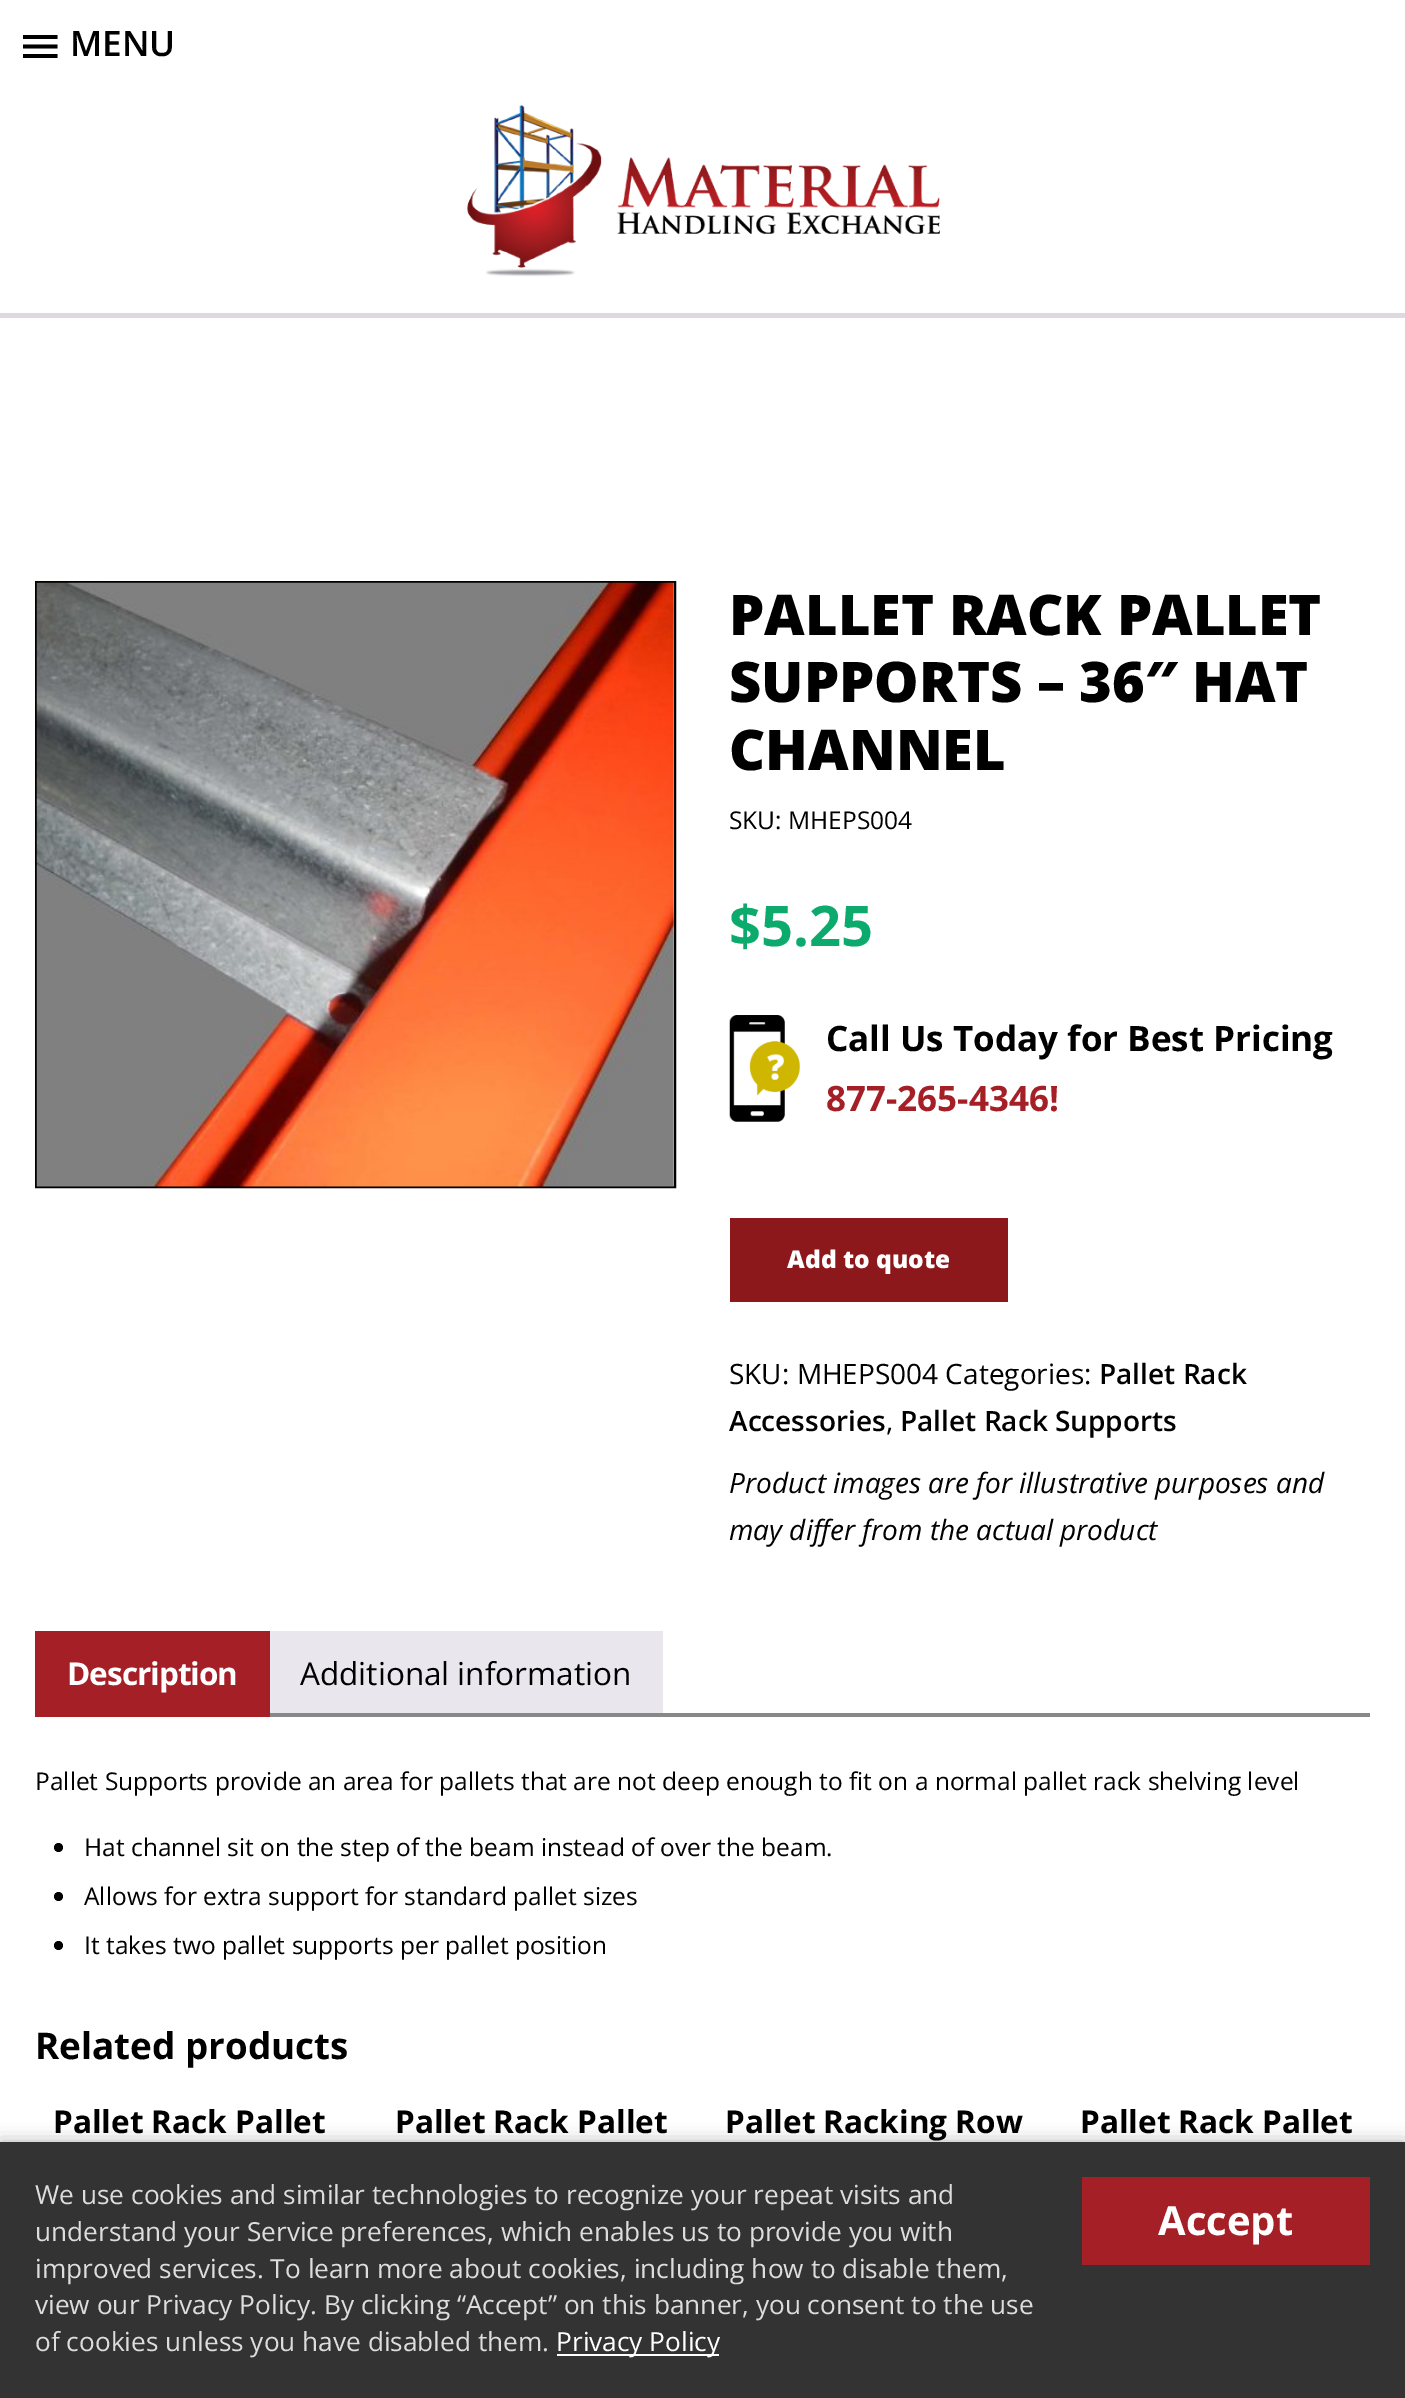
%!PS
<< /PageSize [1405 2398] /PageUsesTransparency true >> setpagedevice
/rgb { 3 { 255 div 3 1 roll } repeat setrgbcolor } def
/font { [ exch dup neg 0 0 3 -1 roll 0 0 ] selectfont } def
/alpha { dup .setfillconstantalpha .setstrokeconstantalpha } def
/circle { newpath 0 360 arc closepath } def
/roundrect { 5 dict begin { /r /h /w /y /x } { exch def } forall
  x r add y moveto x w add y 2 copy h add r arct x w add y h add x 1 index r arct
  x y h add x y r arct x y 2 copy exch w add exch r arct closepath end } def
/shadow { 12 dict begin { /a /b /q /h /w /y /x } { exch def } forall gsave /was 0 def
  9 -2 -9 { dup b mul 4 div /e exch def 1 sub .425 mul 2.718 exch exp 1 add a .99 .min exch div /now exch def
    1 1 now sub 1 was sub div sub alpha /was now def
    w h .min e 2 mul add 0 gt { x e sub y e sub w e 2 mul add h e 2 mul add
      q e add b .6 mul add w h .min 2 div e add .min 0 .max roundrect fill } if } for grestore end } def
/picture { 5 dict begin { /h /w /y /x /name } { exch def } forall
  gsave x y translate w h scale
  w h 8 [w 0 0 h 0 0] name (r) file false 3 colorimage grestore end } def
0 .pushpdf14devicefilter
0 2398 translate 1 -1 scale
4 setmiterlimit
255 255 255 rgb
0 0 1405 2398 rectfill
221 217 222 rgb
0 313 1405 5 rectfill
0 0 0 rgb
23 35 moveto 57.5 35 lineto 57.5 39 lineto 23 39 lineto closepath 23 48.5 moveto 23 44.5 lineto 57.5 44.5 lineto 57.5 48.5 lineto closepath 23 58 moveto 23 54 lineto 57.5 54 lineto 57.5 58 lineto closepath fill
(img/1.rgb) 467 105 473 172 picture
2 setlinewidth
36 582 639 605 rectstroke
(img/2.rgb) 36 582 638 605 picture
(img/3.rgb) 729 1015 71 107 picture
[
  [730 1218 278 84 140 24 27]
  [35 1631 235 86 165 32 38]
  [270 1631 393 82 233 230 237]
  [270 1713 1100 4 136 136 136]
] { aload pop rgb rectfill } forall
0 0 0 rgb
58.5 1847.5 4.5 circle fill
58.5 1896.5 4.5 circle fill
58.5 1945.5 4.5 circle fill
0 2142 1405 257 0 9 0.3 shadow
[
  [0 2142 1405 256 51 51 51]
  [557 2354 162 2 255 255 255]
  [1082 2177 288 88 165 32 38]
] { aload pop rgb rectfill } forall
/OpenSans-SemiBold 35 font
0 0 0 rgb
70 56 moveto (MENU) show
/OpenSans-ExtraBold 56 font
[
  [(PALLET RACK PALLET) 729 635]
  [(SUPPORTS – 36″ HAT) 729 702]
  [(CHANNEL) 729 770]
] { aload pop moveto show } forall
/OpenSans-Regular 24.5 font
729 829 moveto (SKU: MHEPS004) show
/OpenSans-Bold 56 font
13 170 110 rgb
729 946 moveto ($5.25) show
/OpenSans-Bold 35 font
0 0 0 rgb
826 1051 moveto (Call Us Today for Best Pricing) show
165 32 38 rgb
826 1111 moveto (877-265-4346!) show
/OpenSans-ExtraBold 24.5 font
255 255 255 rgb
787 1268 moveto (Add to quote) show
/OpenSans-Regular 28 font
0 0 0 rgb
729 1384 moveto (SKU: MHEPS004 Categories:) show
/OpenSans-SemiBold 28 font
1099 1384 moveto (Pallet Rack) show
729 1431 moveto (Accessories) show
/OpenSans-Regular 28 font
886 1431 moveto (,) show
/OpenSans-SemiBold 28 font
900 1431 moveto (Pallet Rack Supports) show
/OpenSans-Italic 28 font
729 1493 moveto (Product images are for illustrative purposes and) show
729 1540 moveto (may differ from the actual product) show
/OpenSans-Bold 31.5 font
255 255 255 rgb
67 1685 moveto -1 0 (Description) ashow
/OpenSans-Regular 31.5 font
0 0 0 rgb
300 1685 moveto (Additional information) show
/OpenSans-Regular 24.5 font
[
  [(Pallet Supports provide an area for pallets that are not deep enough to fit on a normal pallet rack shelving level) 35 1790]
  [(Hat channel sit on the step of the beam instead of over the beam.) 84 1856]
  [(Allows for extra support for standard pallet sizes) 84 1905]
  [(It takes two pallet supports per pallet position) 84 1954]
] { aload pop moveto show } forall
/OpenSans-Bold 36.75 font
35 2059 moveto (Related products) show
/OpenSans-Bold 31.5 font
[
  [(Pallet Rack Pallet) 53 2133]
  [(Pallet Rack Pallet) 395 2133]
  [(Pallet Racking Row) 725 2133]
  [(Pallet Rack Pallet) 1080 2133]
] { aload pop moveto show } forall
/OpenSans-Regular 26.25 font
221 221 221 rgb
[
  [(We use cookies and similar technologies to recognize your repeat visits and) 35 2204]
  [(understand your Service preferences, which enables us to provide you with) 35 2241]
  [(improved services. To learn more about cookies, including how to disable them,) 35 2278]
  [(view our Privacy Policy. By clicking “Accept” on this banner, you consent to the use) 35 2314]
  [(of cookies unless you have disabled them.) 35 2351]
] { aload pop moveto show } forall
255 255 255 rgb
556 2351 moveto (Privacy Policy) show
/OpenSans-Bold 40 font
1158 2235 moveto (Accept) show
.poppdf14devicefilter showpage
